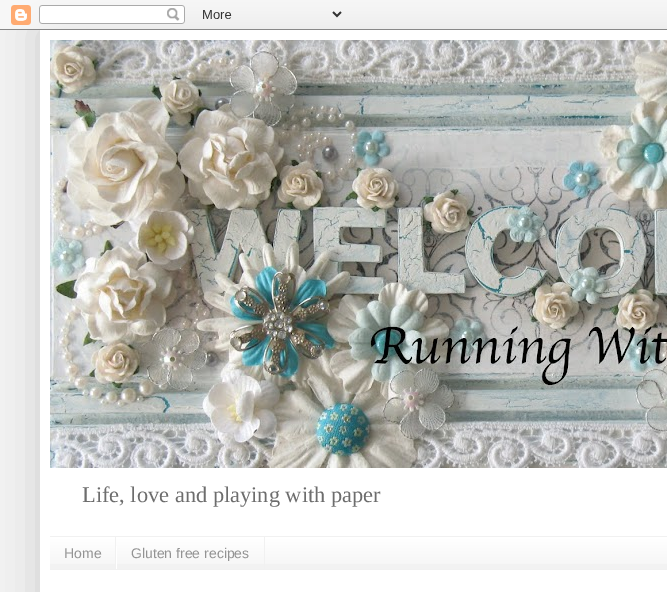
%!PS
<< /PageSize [667 592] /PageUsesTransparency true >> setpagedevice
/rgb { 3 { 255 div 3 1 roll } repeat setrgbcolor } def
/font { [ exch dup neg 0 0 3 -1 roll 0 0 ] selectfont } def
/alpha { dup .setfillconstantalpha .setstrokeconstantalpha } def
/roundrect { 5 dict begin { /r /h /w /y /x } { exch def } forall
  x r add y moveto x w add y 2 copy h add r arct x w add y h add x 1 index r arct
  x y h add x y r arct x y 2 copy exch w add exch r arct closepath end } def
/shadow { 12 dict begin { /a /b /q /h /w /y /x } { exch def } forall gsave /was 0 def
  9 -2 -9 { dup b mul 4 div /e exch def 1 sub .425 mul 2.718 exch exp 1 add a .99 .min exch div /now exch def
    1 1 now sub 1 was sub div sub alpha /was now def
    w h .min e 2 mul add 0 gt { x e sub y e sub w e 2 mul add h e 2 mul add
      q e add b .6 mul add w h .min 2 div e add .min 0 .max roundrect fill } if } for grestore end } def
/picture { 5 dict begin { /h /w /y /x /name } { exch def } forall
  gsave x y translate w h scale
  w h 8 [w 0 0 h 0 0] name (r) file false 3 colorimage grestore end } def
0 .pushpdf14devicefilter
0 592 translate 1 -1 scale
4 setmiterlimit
242 242 242 rgb
0 0 667 592 rectfill
0 0 0 rgb
40 30 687 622 0 20 0.15 shadow
(img/1.rgb) 0 0 667 30 picture
255 255 255 rgb
40 30 627 562 rectfill
(img/2.rgb) 50 40 617 428 picture
242 242 242 rgb
50 538 617 31 rectfill
(img/3.rgb) 50 537 617 27 picture
[
  [50 536 617 1 241 241 241]
  [50 569 617 1 241 241 241]
  [115 537 1 32 241 241 241]
  [264 537 1 32 241 241 241]
  [116 546 1 23 255 255 255]
] { aload pop rgb rectfill } forall
/LiberationSerif-Regular 22.4 font
109 109 109 rgb
82 502 moveto (Life, love and playing with paper) show
/LiberationSans-Regular 14 font
147 147 147 rgb
64 558 moveto (Home) show
131 558 moveto (Gluten free recipes) show
.poppdf14devicefilter showpage
